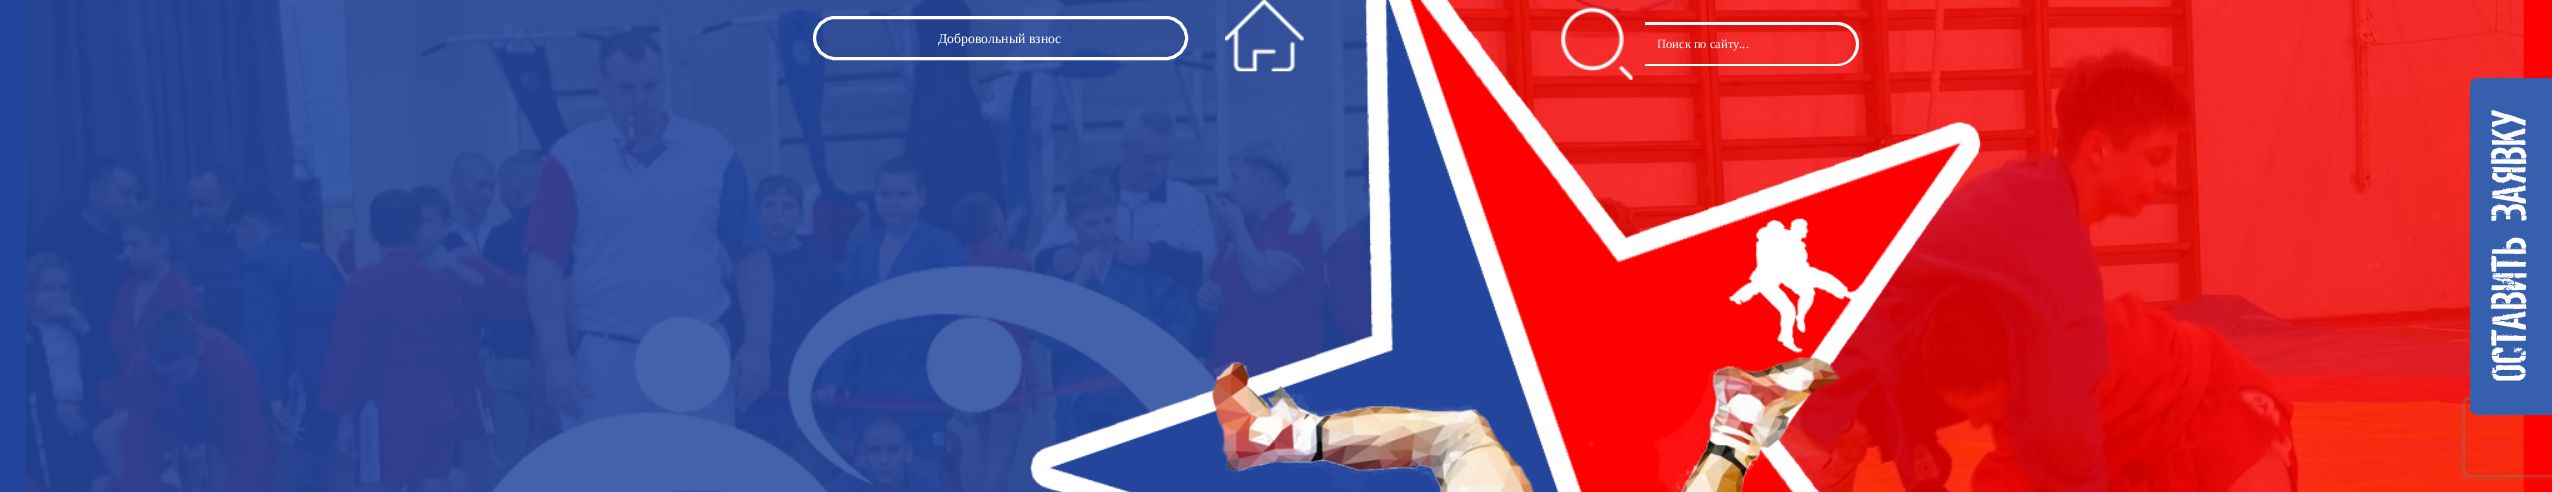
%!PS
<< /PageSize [2552 492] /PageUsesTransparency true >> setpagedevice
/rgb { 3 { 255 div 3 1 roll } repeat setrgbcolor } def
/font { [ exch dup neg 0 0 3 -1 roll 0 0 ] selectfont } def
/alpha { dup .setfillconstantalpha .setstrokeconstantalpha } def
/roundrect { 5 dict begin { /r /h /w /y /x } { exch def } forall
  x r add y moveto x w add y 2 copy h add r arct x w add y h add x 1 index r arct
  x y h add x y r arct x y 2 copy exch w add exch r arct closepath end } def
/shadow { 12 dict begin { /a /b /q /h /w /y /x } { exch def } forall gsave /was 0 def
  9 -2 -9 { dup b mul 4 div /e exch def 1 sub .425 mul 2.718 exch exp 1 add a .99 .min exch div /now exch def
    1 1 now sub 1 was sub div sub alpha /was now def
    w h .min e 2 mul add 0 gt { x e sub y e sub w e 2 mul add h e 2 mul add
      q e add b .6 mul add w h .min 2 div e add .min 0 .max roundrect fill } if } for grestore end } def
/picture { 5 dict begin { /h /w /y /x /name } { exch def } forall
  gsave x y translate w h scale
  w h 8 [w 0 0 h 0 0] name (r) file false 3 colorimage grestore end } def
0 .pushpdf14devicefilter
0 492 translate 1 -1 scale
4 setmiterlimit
255 255 255 rgb
0 0 2552 492 rectfill
(img/1.rgb) 0 0 2552 492 picture
3 setlinewidth
814.5 17.5 372 41 20.5 roundrect stroke
(img/2.rgb) 1225 0 79 72 picture
(img/3.rgb) 1561 7 72 73 picture
1645 22 moveto 1837 22 lineto 1849 22 1859 32 1859 44 curveto 1859 56 1849 66 1837 66 curveto 1645 66 lineto closepath 1645 25 moveto 1837 25 lineto 1848 25 1856 34 1856 44 curveto 1856 55 1848 64 1837 64 curveto 1645 64 lineto closepath eofill
gsave
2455 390 moveto 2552 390 lineto 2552 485 lineto 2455 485 lineto closepath 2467.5 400 moveto 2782.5 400 lineto 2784 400 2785 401 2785 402.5 curveto 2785 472.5 lineto 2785 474 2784 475 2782.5 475 curveto 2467.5 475 lineto 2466 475 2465 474 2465 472.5 curveto 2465 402.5 lineto 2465 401 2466 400 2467.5 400 curveto closepath eoclip newpath
128 128 128 rgb
2465 400 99 75 2.5 3 1 shadow
grestore
54 95 173 rgb
2478 78 moveto 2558 78 lineto 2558 415 lineto 2478 415 lineto 2473.5 415 2470 411.5 2470 407 curveto 2470 86 lineto 2470 81.5 2473.5 78 2478 78 curveto closepath fill
/LiberationSerif-Regular 13.75 font
255 255 255 rgb
938 43 moveto (Добровольный взнос) show
gsave
1658 38 196 13 rectclip
/LiberationSerif-Regular 12.5 font
1657 48 moveto (Поиск по сайту...) show
grestore
/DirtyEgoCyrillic-Regular 45 font
gsave 2526 382 translate -90 rotate 0 0 moveto (ОСТАВИТЬ ЗАЯВКУ) show grestore
.poppdf14devicefilter showpage
